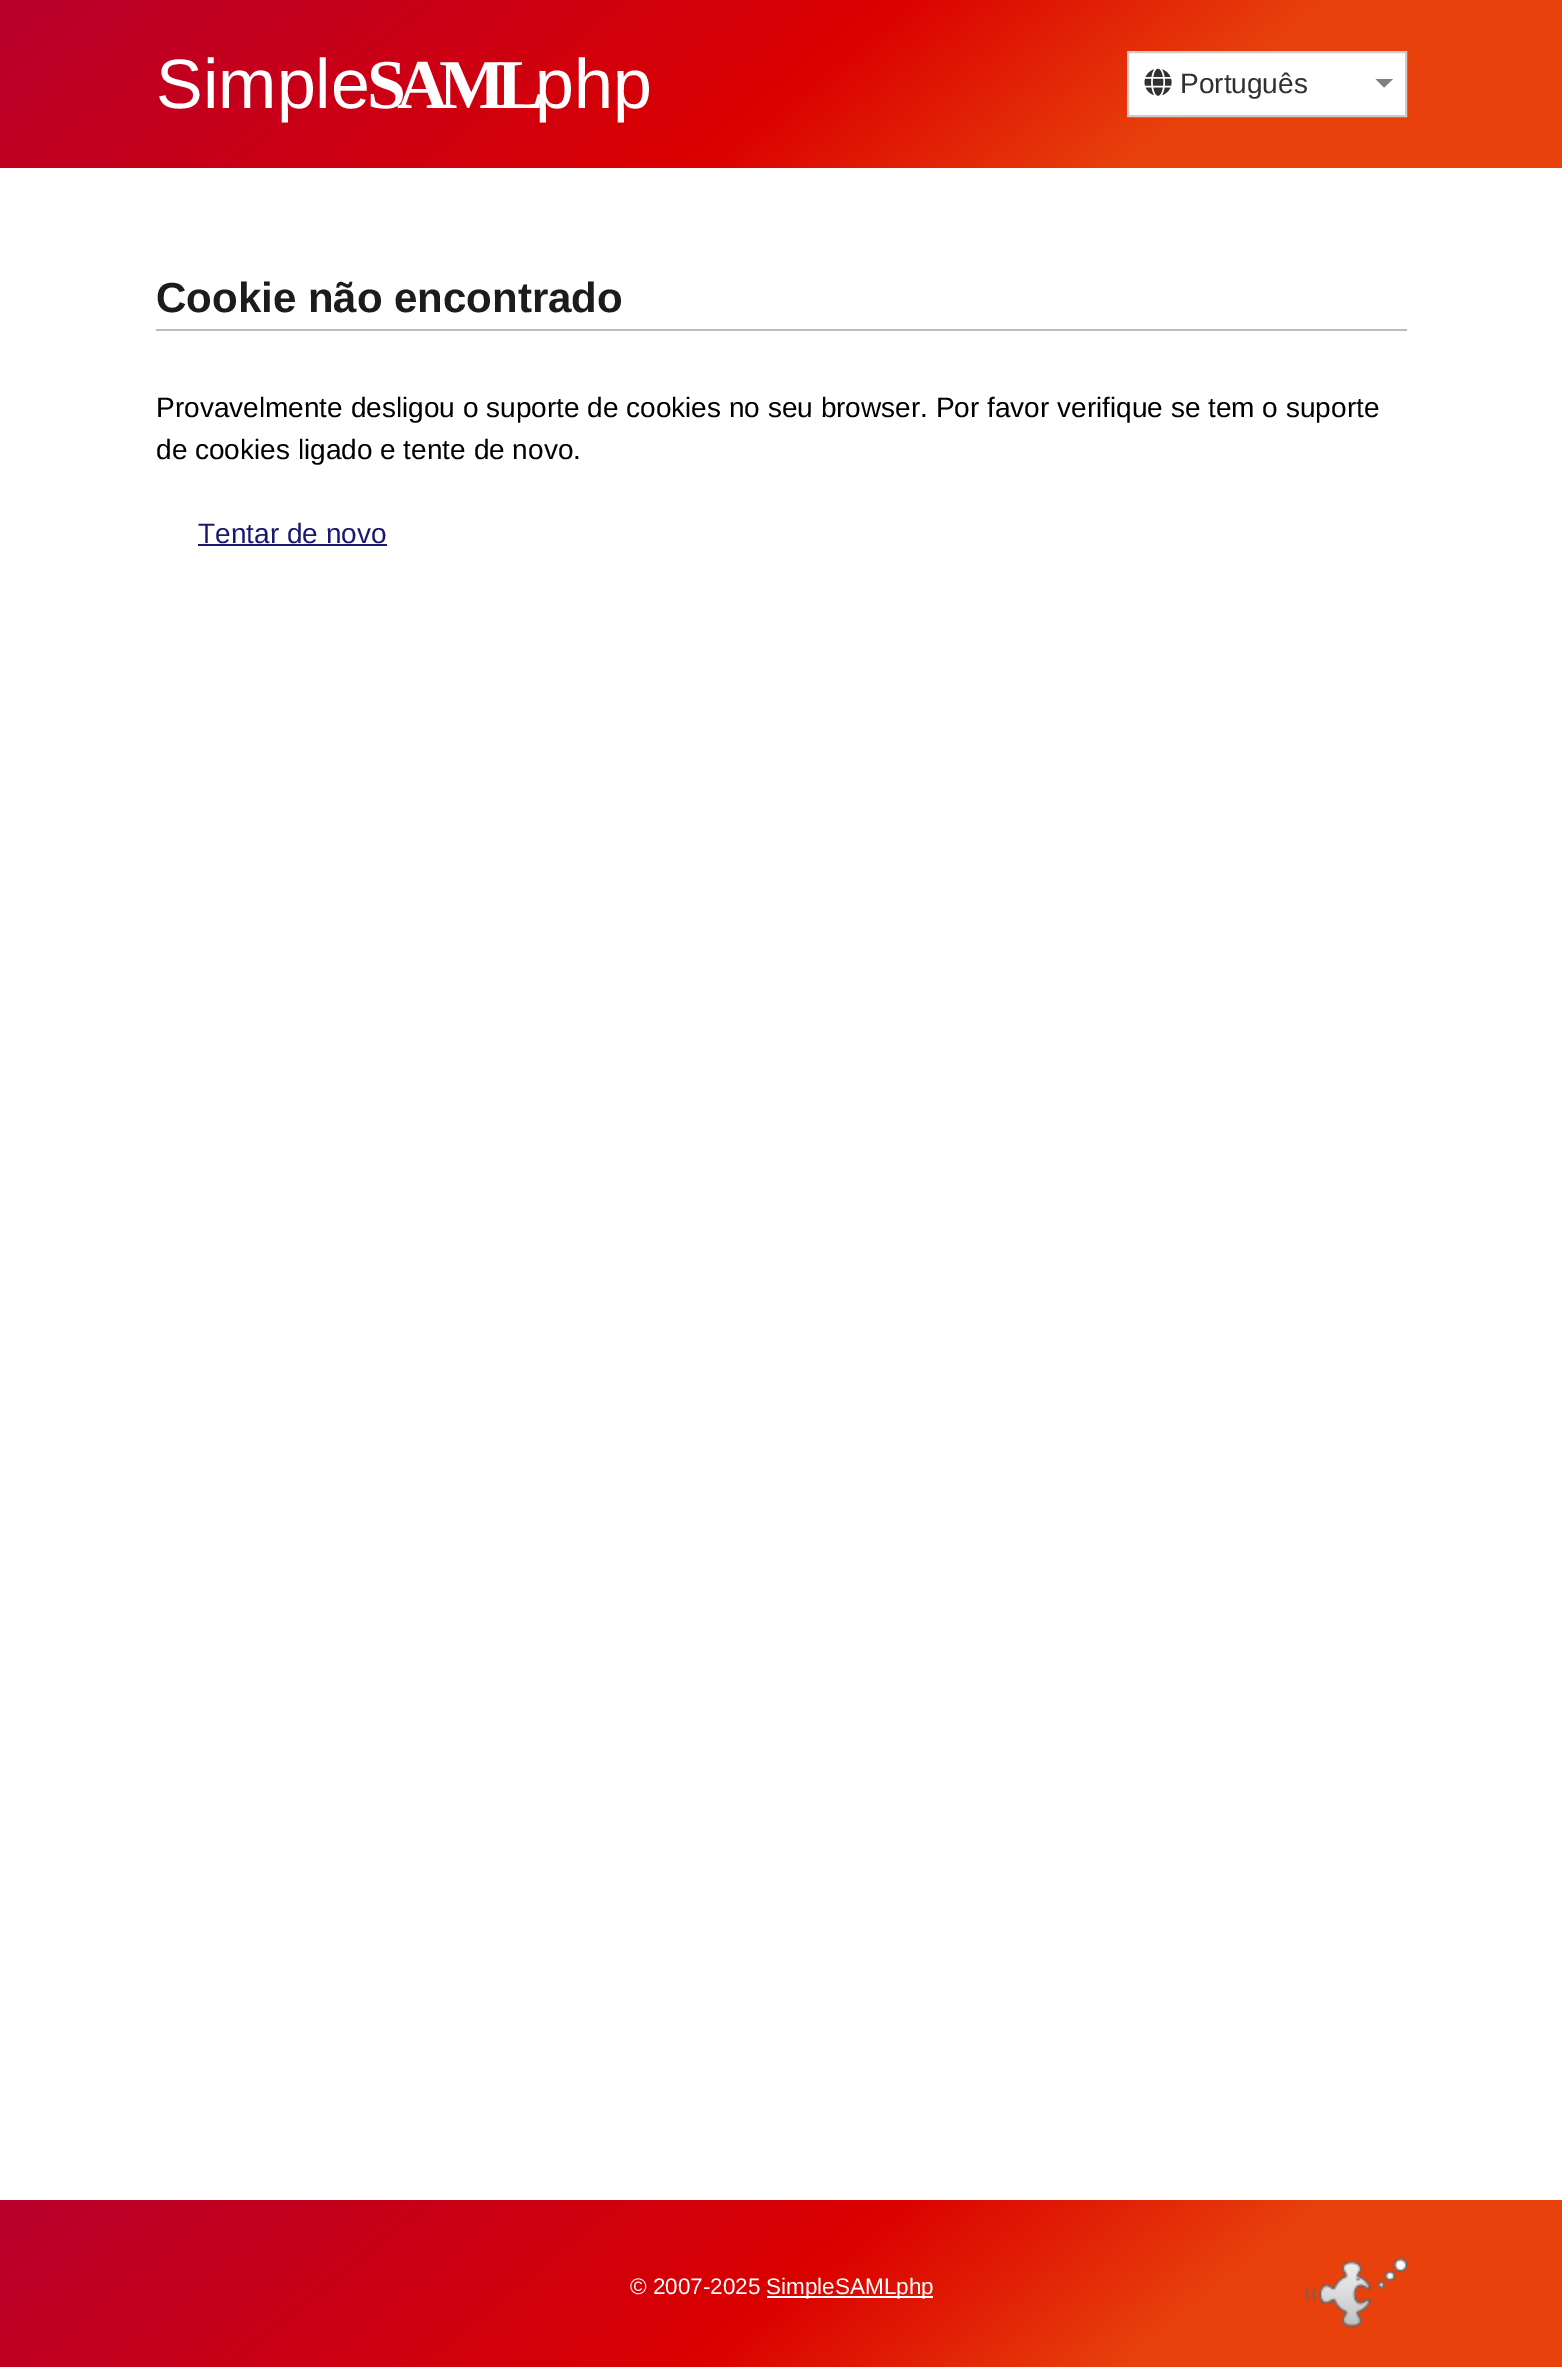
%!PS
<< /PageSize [1562 2367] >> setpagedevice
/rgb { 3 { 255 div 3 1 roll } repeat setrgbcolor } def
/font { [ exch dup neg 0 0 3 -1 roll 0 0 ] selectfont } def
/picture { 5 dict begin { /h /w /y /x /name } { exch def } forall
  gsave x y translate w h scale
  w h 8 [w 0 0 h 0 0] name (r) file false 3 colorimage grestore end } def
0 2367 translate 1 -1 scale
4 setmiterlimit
255 255 255 rgb
0 0 1562 2367 rectfill
gsave 0 0 moveto 1562 0 lineto 1562 168 lineto 0 168 lineto closepath clip newpath
<< /ShadingType 2 /ColorSpace /DeviceRGB /Coords [431 -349 1132 517] /Extend [true true] /Function << /FunctionType 3 /Domain [0 1] /Functions [<< /FunctionType 2 /Domain [0 1] /C0 [0.722 0 0.173] /C1 [0.859 0.004 0] /N 1 >> << /FunctionType 2 /Domain [0 1] /C0 [0.859 0.004 0] /C1 [0.91 0.255 0.047] /N 1 >> << /FunctionType 2 /Domain [0 1] /C0 [0.91 0.255 0.047] /C1 [0.91 0.255 0.047] /N 1 >>] /Bounds [0.51 0.75] /Encode [0 1 0 1 0 1] >> >> shfill grestore
1128 52 moveto 1406 52 lineto 1406 116 lineto 1128 116 lineto closepath gsave fill grestore
204 204 204 rgb
2 setlinewidth
stroke
(img/1.rgb) 1144 68 28 28 picture
128 128 128 rgb
1375.5 79 moveto 1393 79 lineto 1384 87.5 lineto closepath fill
187 187 187 rgb
156 329 1251 2 rectfill
25 25 112 rgb
198 544 189 2 rectfill
gsave 0 2200 moveto 1562 2200 lineto 1562 2367 lineto 0 2367 lineto closepath clip newpath
<< /ShadingType 2 /ColorSpace /DeviceRGB /Coords [431 1851 1132 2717] /Extend [true true] /Function << /FunctionType 3 /Domain [0 1] /Functions [<< /FunctionType 2 /Domain [0 1] /C0 [0.722 0 0.173] /C1 [0.859 0.004 0] /N 1 >> << /FunctionType 2 /Domain [0 1] /C0 [0.859 0.004 0] /C1 [0.91 0.255 0.047] /N 1 >> << /FunctionType 2 /Domain [0 1] /C0 [0.91 0.255 0.047] /C1 [0.91 0.255 0.047] /N 1 >>] /Bounds [0.51 0.75] /Encode [0 1 0 1 0 1] >> >> shfill grestore
255 255 255 rgb
767 2296 166 2 rectfill
(img/2.rgb) 1305 2257 102 71 picture
/LiberationSans-Regular 70 font
156 108 moveto (Simple) show
/LiberationSerif-Bold 70 font
367 108 moveto -8.5 0 (SAML) ashow
/LiberationSans-Regular 70 font
535 108 moveto (php) show
/LiberationSans-Regular 28 font
48 48 48 rgb
1180 93 moveto (Português) show
/LiberationSans-Bold 42 font
28 28 28 rgb
156 312 moveto (Cookie não encontrado) show
/LiberationSans-Regular 28 font
0 0 0 rgb
156 417 moveto (Provavelmente desligou o suporte de cookies no seu browser. Por favor verifique se tem o suporte) show
156 459 moveto (de cookies ligado e tente de novo.) show
25 25 112 rgb
198 543 moveto (Tentar de novo) show
/LiberationSans-Regular 22.5 font
255 255 255 rgb
630 2294 moveto (© 2007-2025) show
766 2294 moveto (SimpleSAMLphp) show
showpage
